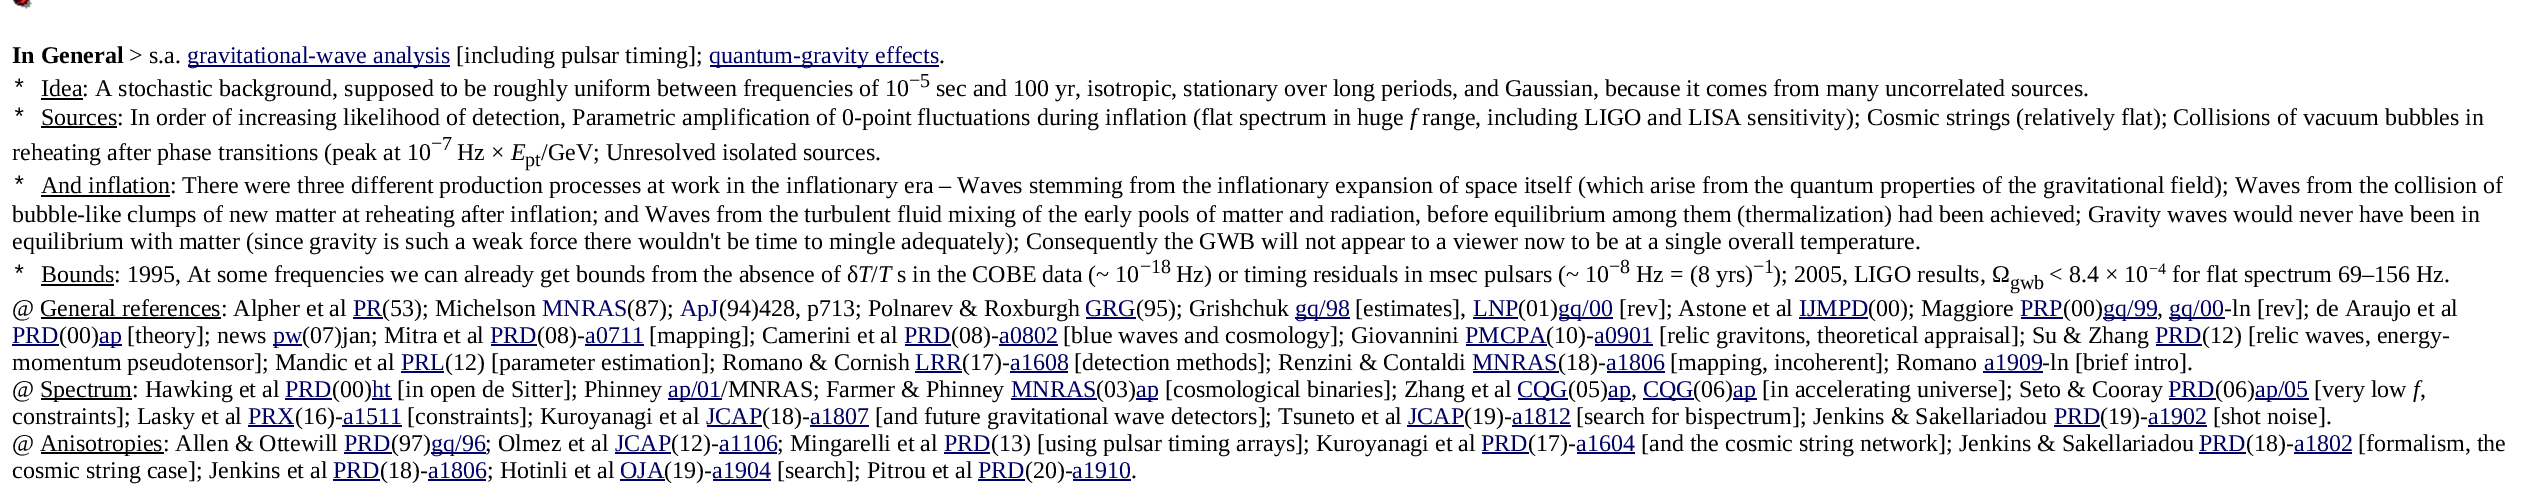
%!PS
<< /PageSize [2541 498] >> setpagedevice
/rgb { 3 { 255 div 3 1 roll } repeat setrgbcolor } def
/font { [ exch dup neg 0 0 3 -1 roll 0 0 ] selectfont } def
/picture { 5 dict begin { /h /w /y /x /name } { exch def } forall
  gsave x y translate w h scale
  w h 8 [w 0 0 h 0 0] name (r) file false 3 colorimage grestore end } def
0 498 translate 1 -1 scale
4 setmiterlimit
255 255 255 rgb
0 0 2541 498 rectfill
(img/1.rgb) 13 0 19 9 picture
[
  [188 65 262 2 0 0 102]
  [710 65 229 2 0 0 102]
  [41 98 42 2 0 0 0]
  [41 126 76 2 0 0 0]
  [41 195 129 2 0 0 0]
  [41 284 73 2 0 0 0]
  [353 317 30 2 0 0 102]
  [1086 317 50 2 0 0 102]
  [1295 317 55 2 0 0 102]
  [1473 317 45 2 0 0 102]
  [1559 317 54 2 0 0 102]
  [1799 317 69 2 0 0 102]
  [2021 317 42 2 0 0 102]
  [2103 317 54 2 0 0 102]
  [2169 317 56 2 0 0 102]
  [41 317 180 2 0 0 0]
  [12 344 47 2 0 0 102]
  [99 344 23 2 0 0 102]
  [273 344 29 2 0 0 102]
  [491 344 46 2 0 0 102]
  [585 344 59 2 0 0 102]
  [905 344 46 2 0 0 102]
  [999 344 59 2 0 0 102]
  [1466 344 81 2 0 0 102]
  [1595 344 58 2 0 0 102]
  [2156 344 46 2 0 0 102]
  [401 371 43 2 0 0 102]
  [915 371 47 2 0 0 102]
  [1010 371 58 2 0 0 102]
  [1473 371 86 2 0 0 102]
  [1607 371 58 2 0 0 102]
  [1983 371 60 2 0 0 102]
  [41 398 91 2 0 0 0]
  [285 398 47 2 0 0 102]
  [372 398 20 2 0 0 102]
  [668 398 54 2 0 0 102]
  [1011 398 86 2 0 0 102]
  [1136 398 22 2 0 0 102]
  [1518 398 50 2 0 0 102]
  [1608 398 23 2 0 0 102]
  [1643 398 51 2 0 0 102]
  [1733 398 24 2 0 0 102]
  [2169 398 47 2 0 0 102]
  [2255 398 54 2 0 0 102]
  [248 425 46 2 0 0 102]
  [342 425 60 2 0 0 102]
  [707 425 55 2 0 0 102]
  [810 425 59 2 0 0 102]
  [1407 425 57 2 0 0 102]
  [1512 425 59 2 0 0 102]
  [2054 425 46 2 0 0 102]
  [2148 425 59 2 0 0 102]
  [41 452 123 2 0 0 0]
  [344 452 48 2 0 0 102]
  [431 452 55 2 0 0 102]
  [615 452 56 2 0 0 102]
  [719 452 58 2 0 0 102]
  [944 452 46 2 0 0 102]
  [1482 452 47 2 0 0 102]
  [1577 452 58 2 0 0 102]
  [2199 452 47 2 0 0 102]
  [2294 452 58 2 0 0 102]
  [333 479 47 2 0 0 102]
  [428 479 58 2 0 0 102]
  [620 479 45 2 0 0 102]
  [713 479 58 2 0 0 102]
  [978 479 47 2 0 0 102]
  [1073 479 58 2 0 0 102]
] { aload pop rgb rectfill } forall
/LiberationSerif-Bold 24 font
0 0 0 rgb
12 63 moveto (In General) show
/LiberationSerif-Regular 24 font
129 63 moveto (> s.a.) show
0 0 102 rgb
187 63 moveto (gravitational-wave analysis) show
0 0 0 rgb
456 63 moveto ([including pulsar timing];) show
0 0 102 rgb
709 63 moveto (quantum-gravity effects) show
0 0 0 rgb
939 63 moveto (.) show
/LiberationMono-Regular 24 font
12 96 moveto (*) show
/LiberationSerif-Regular 24 font
41 96 moveto (Idea: A stochastic background, supposed to be roughly uniform between frequencies of 10) show
/LiberationSerif-Regular 20 font
909 87 moveto (−5) show
/LiberationSerif-Regular 24 font
936 96 moveto (sec and 100 yr, isotropic, stationary over long periods, and Gaussian, because it comes from many uncorrelated sources.) show
/LiberationMono-Regular 24 font
12 125 moveto (*) show
/LiberationSerif-Regular 24 font
41 125 moveto (Sources: In order of increasing likelihood of detection, Parametric amplification of 0-point fluctuations during inflation \(flat spectrum in huge) show
/LiberationSerif-Italic 24 font
1410 125 moveto (f) show
/LiberationSerif-Regular 24 font
1422 125 moveto (range, including LIGO and LISA sensitivity\); Cosmic strings \(relatively flat\); Collisions of vacuum bubbles in) show
12 160 moveto (reheating after phase transitions \(peak at 10) show
/LiberationSerif-Regular 20 font
431 150 moveto (−7) show
/LiberationSerif-Regular 24 font
457 160 moveto (Hz ×) show
/LiberationSerif-Italic 24 font
511 160 moveto (E) show
/LiberationSerif-Regular 20 font
525 166 moveto (pt) show
/LiberationSerif-Regular 24 font
541 160 moveto (/GeV; Unresolved isolated sources.) show
/LiberationMono-Regular 24 font
12 193 moveto (*) show
/LiberationSerif-Regular 24 font
[
  [(And inflation: There were three different production processes at work in the inflationary era – Waves stemming from the inflationary expansion of space itself \(which arise from the quantum properties of the gravitational field\); Waves from the collision of) 41 193]
  [(bubble-like clumps of new matter at reheating after inflation; and Waves from the turbulent fluid mixing of the early pools of matter and radiation, before equilibrium among them \(thermalization\) had been achieved; Gravity waves would never have been in) 12 222]
  [(equilibrium with matter \(since gravity is such a weak force there wouldn't be time to mingle adequately\); Consequently the GWB will not appear to a viewer now to be at a single overall temperature.) 12 249]
] { aload pop moveto show } forall
/LiberationMono-Regular 24 font
12 282 moveto (*) show
/LiberationSerif-Regular 24 font
41 282 moveto (Bounds: 1995, At some frequencies we can already get bounds from the absence of δ) show
/LiberationSerif-Italic 24 font
858 282 moveto (T) show
/LiberationSerif-Regular 24 font
871 282 moveto (/) show
/LiberationSerif-Italic 24 font
878 282 moveto (T) show
/LiberationSerif-Regular 24 font
897 282 moveto (s in the COBE data \(~ 10) show
/LiberationSerif-Regular 20 font
1140 273 moveto (−18) show
/LiberationSerif-Regular 24 font
1176 282 moveto (Hz\) or timing residuals in msec pulsars \(~ 10) show
/LiberationSerif-Regular 20 font
1609 273 moveto (−8) show
/LiberationSerif-Regular 24 font
1636 282 moveto (Hz = \(8 yrs\)) show
/LiberationSerif-Regular 20 font
1753 273 moveto (−1) show
/LiberationSerif-Regular 24 font
1773 282 moveto (\); 2005, LIGO results, Ω) show
/LiberationSerif-Regular 20 font
2010 289 moveto (gwb) show
/LiberationSerif-Regular 24 font
2049 282 moveto (< 8.4 × 10) show
/LiberationSerif-Regular 16 font
2149 274 moveto (−4) show
/LiberationSerif-Regular 24 font
2172 282 moveto (for flat spectrum 69–156 Hz.) show
12 316 moveto (@ General references: Alpher et al) show
0 0 102 rgb
353 316 moveto (PR) show
0 0 0 rgb
382 316 moveto (\(53\); Michelson) show
0 0 102 rgb
542 316 moveto (MNRAS) show
0 0 0 rgb
627 316 moveto (\(87\);) show
0 0 102 rgb
680 316 moveto (ApJ) show
0 0 0 rgb
719 316 moveto (\(94\)428, p713; Polnarev & Roxburgh) show
0 0 102 rgb
1085 316 moveto (GRG) show
0 0 0 rgb
1136 316 moveto (\(95\); Grishchuk) show
0 0 102 rgb
1295 316 moveto (gq/98) show
0 0 0 rgb
1355 316 moveto ([estimates],) show
0 0 102 rgb
1473 316 moveto (LNP) show
0 0 0 rgb
1518 316 moveto (\(01\)) show
0 0 102 rgb
1558 316 moveto (gq/00) show
0 0 0 rgb
1619 316 moveto ([rev]; Astone et al) show
0 0 102 rgb
1799 316 moveto (IJMPD) show
0 0 0 rgb
1868 316 moveto (\(00\); Maggiore) show
0 0 102 rgb
2020 316 moveto (PRP) show
0 0 0 rgb
2063 316 moveto (\(00\)) show
0 0 102 rgb
2103 316 moveto (gq/99) show
0 0 0 rgb
2157 316 moveto (,) show
0 0 102 rgb
2169 316 moveto (gq/00) show
0 0 0 rgb
2224 316 moveto (-ln [rev]; de Araujo et al) show
0 0 102 rgb
12 343 moveto (PRD) show
0 0 0 rgb
59 343 moveto (\(00\)) show
0 0 102 rgb
99 343 moveto (ap) show
0 0 0 rgb
127 343 moveto ([theory]; news) show
0 0 102 rgb
273 343 moveto (pw) show
0 0 0 rgb
302 343 moveto (\(07\)jan; Mitra et al) show
0 0 102 rgb
490 343 moveto (PRD) show
0 0 0 rgb
537 343 moveto (\(08\)-) show
0 0 102 rgb
585 343 moveto (a0711) show
0 0 0 rgb
649 343 moveto ([mapping]; Camerini et al) show
0 0 102 rgb
904 343 moveto (PRD) show
0 0 0 rgb
951 343 moveto (\(08\)-) show
0 0 102 rgb
999 343 moveto (a0802) show
0 0 0 rgb
1063 343 moveto ([blue waves and cosmology]; Giovannini) show
0 0 102 rgb
1465 343 moveto (PMCPA) show
0 0 0 rgb
1546 343 moveto (\(10\)-) show
0 0 102 rgb
1594 343 moveto (a0901) show
0 0 0 rgb
1659 343 moveto ([relic gravitons, theoretical appraisal]; Su & Zhang) show
0 0 102 rgb
2155 343 moveto (PRD) show
0 0 0 rgb
2202 343 moveto (\(12\) [relic waves, energy-) show
12 370 moveto (momentum pseudotensor]; Mandic et al) show
0 0 102 rgb
401 370 moveto (PRL) show
0 0 0 rgb
445 370 moveto (\(12\) [parameter estimation]; Romano & Cornish) show
0 0 102 rgb
915 370 moveto (LRR) show
0 0 0 rgb
962 370 moveto (\(17\)-) show
0 0 102 rgb
1010 370 moveto (a1608) show
0 0 0 rgb
1074 370 moveto ([detection methods]; Renzini & Contaldi) show
0 0 102 rgb
1472 370 moveto (MNRAS) show
0 0 0 rgb
1558 370 moveto (\(18\)-) show
0 0 102 rgb
1606 370 moveto (a1806) show
0 0 0 rgb
1670 370 moveto ([mapping, incoherent]; Romano) show
0 0 102 rgb
1984 370 moveto (a1909) show
0 0 0 rgb
[
  [(-ln [brief intro].) 2042 370]
  [(@) 12 397]
  [(Spectrum: Hawking et al) 40 397]
] { aload pop moveto show } forall
0 0 102 rgb
285 397 moveto (PRD) show
0 0 0 rgb
332 397 moveto (\(00\)) show
0 0 102 rgb
372 397 moveto (ht) show
0 0 0 rgb
397 397 moveto ([in open de Sitter]; Phinney) show
0 0 102 rgb
668 397 moveto (ap/01) show
0 0 0 rgb
721 397 moveto (/MNRAS; Farmer & Phinney) show
0 0 102 rgb
1011 397 moveto (MNRAS) show
0 0 0 rgb
1096 397 moveto (\(03\)) show
0 0 102 rgb
1136 397 moveto (ap) show
0 0 0 rgb
1165 397 moveto ([cosmological binaries]; Zhang et al) show
0 0 102 rgb
1517 397 moveto (CQG) show
0 0 0 rgb
1568 397 moveto (\(05\)) show
0 0 102 rgb
1608 397 moveto (ap) show
0 0 0 rgb
1631 397 moveto (,) show
0 0 102 rgb
1643 397 moveto (CQG) show
0 0 0 rgb
1693 397 moveto (\(06\)) show
0 0 102 rgb
1733 397 moveto (ap) show
0 0 0 rgb
1762 397 moveto ([in accelerating universe]; Seto & Cooray) show
0 0 102 rgb
2168 397 moveto (PRD) show
0 0 0 rgb
2215 397 moveto (\(06\)) show
0 0 102 rgb
2255 397 moveto (ap/05) show
0 0 0 rgb
2314 397 moveto ([very low) show
/LiberationSerif-Italic 24 font
2413 397 moveto (f) show
/LiberationSerif-Regular 24 font
2420 397 moveto (,) show
12 424 moveto (constraints]; Lasky et al) show
0 0 102 rgb
248 424 moveto (PRX) show
0 0 0 rgb
295 424 moveto (\(16\)-) show
0 0 102 rgb
343 424 moveto (a1511) show
0 0 0 rgb
407 424 moveto ([constraints]; Kuroyanagi et al) show
0 0 102 rgb
706 424 moveto (JCAP) show
0 0 0 rgb
762 424 moveto (\(18\)-) show
0 0 102 rgb
810 424 moveto (a1807) show
0 0 0 rgb
875 424 moveto ([and future gravitational wave detectors]; Tsuneto et al) show
0 0 102 rgb
1408 424 moveto (JCAP) show
0 0 0 rgb
1464 424 moveto (\(19\)-) show
0 0 102 rgb
1512 424 moveto (a1812) show
0 0 0 rgb
1576 424 moveto ([search for bispectrum]; Jenkins & Sakellariadou) show
0 0 102 rgb
2054 424 moveto (PRD) show
0 0 0 rgb
2100 424 moveto (\(19\)-) show
0 0 102 rgb
2148 424 moveto (a1902) show
0 0 0 rgb
[
  [([shot noise].) 2213 424]
  [(@) 12 451]
  [(Anisotropies: Allen & Ottewill) 40 451]
] { aload pop moveto show } forall
0 0 102 rgb
344 451 moveto (PRD) show
0 0 0 rgb
391 451 moveto (\(97\)) show
0 0 102 rgb
431 451 moveto (gq/96) show
0 0 0 rgb
485 451 moveto (; Olmez et al) show
0 0 102 rgb
615 451 moveto (JCAP) show
0 0 0 rgb
671 451 moveto (\(12\)-) show
0 0 102 rgb
719 451 moveto (a1106) show
0 0 0 rgb
777 451 moveto (; Mingarelli et al) show
0 0 102 rgb
944 451 moveto (PRD) show
0 0 0 rgb
991 451 moveto (\(13\) [using pulsar timing arrays]; Kuroyanagi et al) show
0 0 102 rgb
1481 451 moveto (PRD) show
0 0 0 rgb
1528 451 moveto (\(17\)-) show
0 0 102 rgb
1576 451 moveto (a1604) show
0 0 0 rgb
1641 451 moveto ([and the cosmic string network]; Jenkins & Sakellariadou) show
0 0 102 rgb
2199 451 moveto (PRD) show
0 0 0 rgb
2246 451 moveto (\(18\)-) show
0 0 102 rgb
2294 451 moveto (a1802) show
0 0 0 rgb
2358 451 moveto ([formalism, the) show
12 478 moveto (cosmic string case]; Jenkins et al) show
0 0 102 rgb
333 478 moveto (PRD) show
0 0 0 rgb
380 478 moveto (\(18\)-) show
0 0 102 rgb
428 478 moveto (a1806) show
0 0 0 rgb
487 478 moveto (; Hotinli et al) show
0 0 102 rgb
620 478 moveto (OJA) show
0 0 0 rgb
664 478 moveto (\(19\)-) show
0 0 102 rgb
712 478 moveto (a1904) show
0 0 0 rgb
777 478 moveto ([search]; Pitrou et al) show
0 0 102 rgb
978 478 moveto (PRD) show
0 0 0 rgb
1025 478 moveto (\(20\)-) show
0 0 102 rgb
1072 478 moveto (a1910) show
0 0 0 rgb
1131 478 moveto (.) show
showpage
